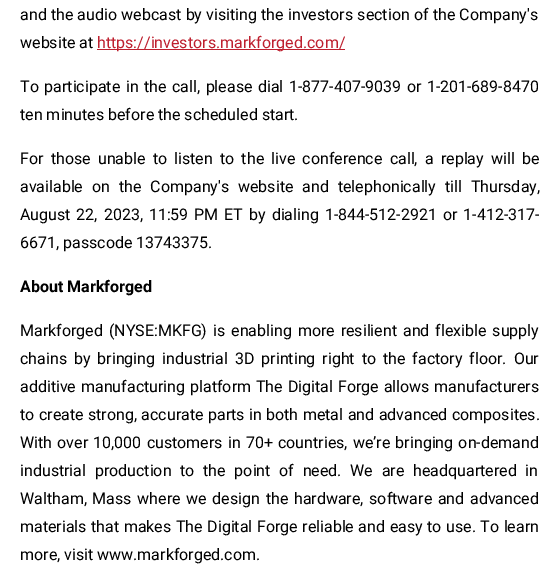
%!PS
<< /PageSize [559 570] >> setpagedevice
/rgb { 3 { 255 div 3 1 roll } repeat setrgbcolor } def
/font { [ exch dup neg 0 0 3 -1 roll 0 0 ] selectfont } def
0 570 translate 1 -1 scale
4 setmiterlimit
255 255 255 rgb
0 0 559 570 rectfill
190 32 47 rgb
97 49 248 1 rectfill
/Roboto-Regular 16 font
0 0 0 rgb
20 20 moveto 0.25 0 32 (and the audio webcast by visiting the investors section of the Company's) widthshow
20 48 moveto (website at) show
190 32 47 rgb
97 48 moveto (https://investors.markforged.com/) show
0 0 0 rgb
20 92 moveto 1.6 0 32 (To participate in the call, please dial 1-877-407-9039 or 1-201-689-8470) widthshow
20 120 moveto (ten minutes before the scheduled start.) show
20 164 moveto 3.25 0 32 (For those unable to listen to the live conference call, a replay will be) widthshow
20 192 moveto 5 0 32 (available on the Company's website and telephonically till Thursday,) widthshow
20 220 moveto 2 0 32 (August 22, 2023, 11:59 PM ET by dialing 1-844-512-2921 or 1-412-317-) widthshow
20 248 moveto (6671, passcode 13743375.) show
/Roboto-Bold 16 font
20 292 moveto (About Markforged) show
/Roboto-Regular 16 font
20 336 moveto 2 0 32 (Markforged \(NYSE:MKFG\) is enabling more resilient and flexible supply) widthshow
20 364 moveto 3 0 32 (chains by bringing industrial 3D printing right to the factory floor. Our) widthshow
20 392 moveto 1 0 32 (additive manufacturing platform The Digital Forge allows manufacturers) widthshow
20 420 moveto 0.5 0 32 (to create strong, accurate parts in both metal and advanced composites.) widthshow
20 448 moveto 1.25 0 32 (With over 10,000 customers in 70+ countries, we’re bringing on-demand) widthshow
20 476 moveto 4.75 0 32 (industrial production to the point of need. We are headquartered in) widthshow
20 504 moveto 1.75 0 32 (Waltham, Mass where we design the hardware, software and advanced) widthshow
20 532 moveto 0.6 0 32 (materials that makes The Digital Forge reliable and easy to use. To learn) widthshow
20 560 moveto (more, visit www.markforged.com.) show
showpage
